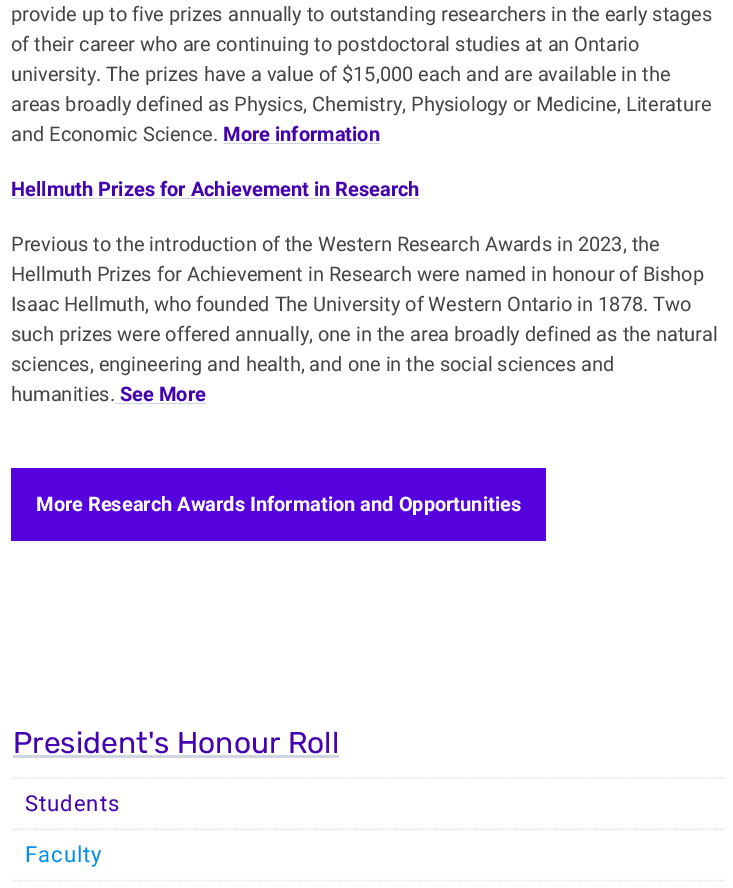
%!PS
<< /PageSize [733 888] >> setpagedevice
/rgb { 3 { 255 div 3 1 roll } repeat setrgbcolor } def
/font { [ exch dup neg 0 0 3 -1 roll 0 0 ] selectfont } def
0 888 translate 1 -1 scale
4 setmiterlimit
255 255 255 rgb
0 0 733 888 rectfill
[
  [223 143 157 1 207 214 226]
  [11 198 409 1 207 214 226]
  [115 403 91 1 207 214 226]
  [11 468 535 73 85 2 222]
  [13 755 326 3 207 214 226]
] { aload pop rgb rectfill } forall
225 225 225 rgb
1.2 setlinewidth
[1.25 1.25] 0 setdash
12.5 778 moveto 724 778 lineto stroke
12.5 829.5 moveto 724 829.5 lineto stroke
255 255 255 rgb
13 829 711 2 rectfill
225 225 225 rgb
12.5 829.5 moveto 724 829.5 lineto stroke
12.5 880.5 moveto 724 880.5 lineto stroke
/Roboto-Regular 20 font
68 68 68 rgb
[
  [(provide up to five prizes annually to outstanding researchers in the early stages) 11 21]
  [(of their career who are continuing to postdoctoral studies at an Ontario) 11 51]
  [(university. The prizes have a value of $15,000 each and are available in the) 11 81]
  [(areas broadly defined as Physics, Chemistry, Physiology or Medicine, Literature) 11 111]
  [(and Economic Science.) 11 141]
] { aload pop moveto show } forall
/Roboto-Bold 20 font
69 2 177 rgb
223 141 moveto (More information) show
11 196 moveto (Hellmuth Prizes for Achievement in Research) show
/Roboto-Regular 20 font
68 68 68 rgb
[
  [(Previous to the introduction of the Western Research Awards in 2023, the) 11 251]
  [(Hellmuth Prizes for Achievement in Research were named in honour of Bishop) 11 281]
  [(Isaac Hellmuth, who founded The University of Western Ontario in 1878. Two) 11 311]
  [(such prizes were offered annually, one in the area broadly defined as the natural) 11 341]
  [(sciences, engineering and health, and one in the social sciences and) 11 371]
  [(humanities.) 11 401]
] { aload pop moveto show } forall
/Roboto-Bold 20 font
69 2 177 rgb
120 401 moveto (See More) show
255 255 255 rgb
36 511 moveto (More Research Awards Information and Opportunities) show
/Rubik-Regular 30 font
69 2 177 rgb
13 753 moveto (President's Honour Roll) show
/Roboto-Regular 22 font
25 811 moveto 1 0 (Students) ashow
2 143 235 rgb
25 862 moveto 1 0 (Faculty) ashow
showpage
